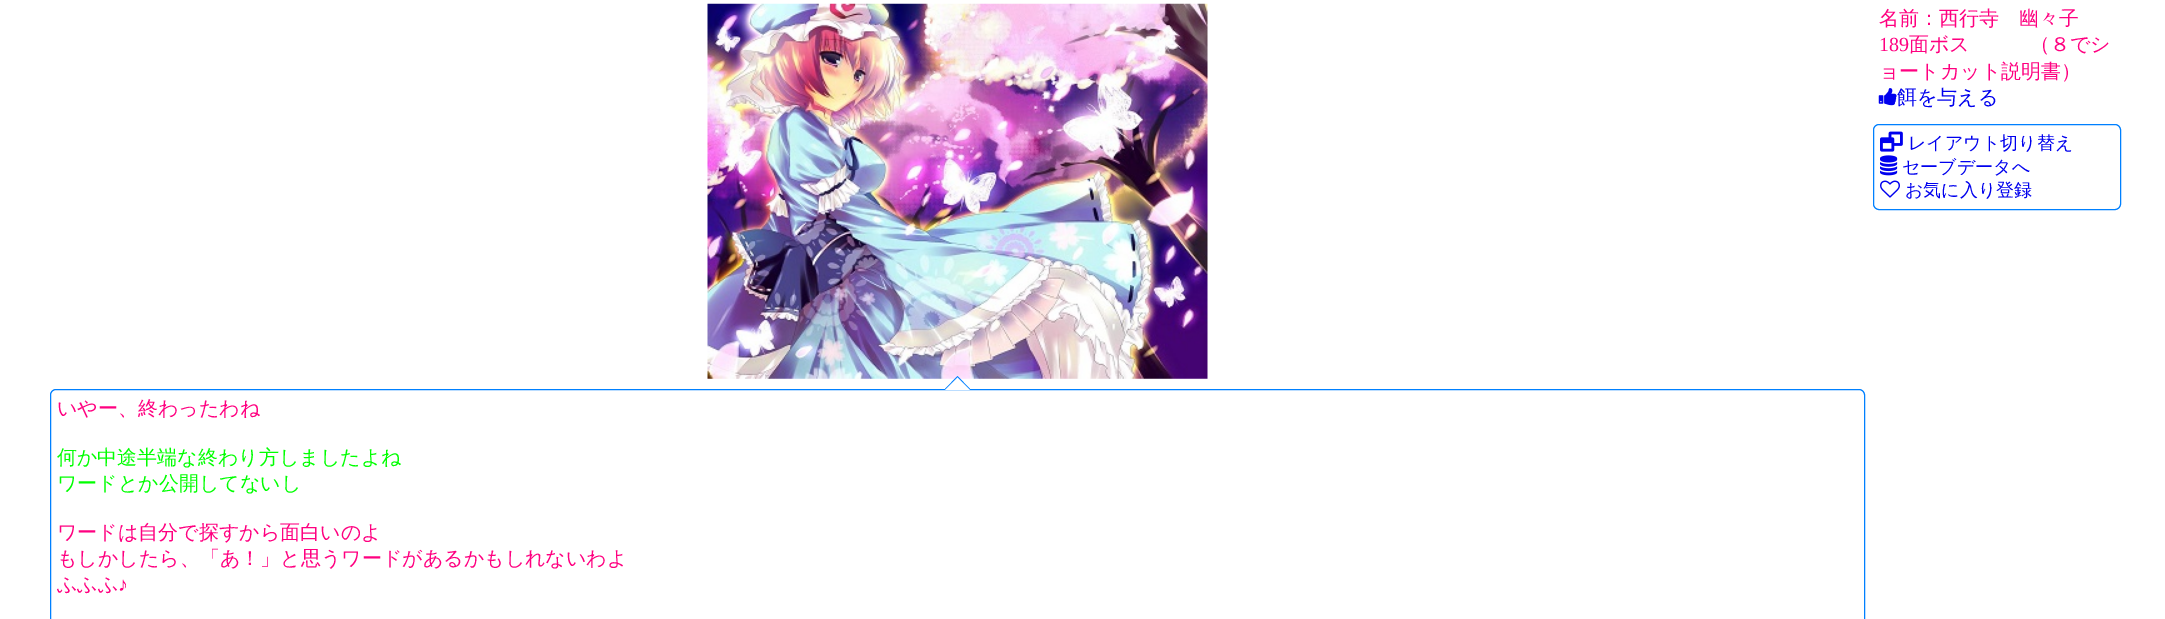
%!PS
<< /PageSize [2165 619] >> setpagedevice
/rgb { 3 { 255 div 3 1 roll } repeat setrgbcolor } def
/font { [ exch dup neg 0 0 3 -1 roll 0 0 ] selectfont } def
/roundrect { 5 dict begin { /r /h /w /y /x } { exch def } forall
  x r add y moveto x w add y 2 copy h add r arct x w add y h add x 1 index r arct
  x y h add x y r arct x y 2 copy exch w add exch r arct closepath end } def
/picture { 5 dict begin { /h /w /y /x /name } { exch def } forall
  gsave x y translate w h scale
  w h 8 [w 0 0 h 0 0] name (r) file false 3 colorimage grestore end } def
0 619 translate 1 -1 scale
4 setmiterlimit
255 255 255 rgb
0 0 2165 619 rectfill
(img/1.rgb) 707 3 501 376 picture
(img/2.rgb) 1878 88 19 18 picture
0 128 255 rgb
1873.5 124.5 247 85 5.5 roundrect stroke
(img/3.rgb) 1880 131 23 21 picture
(img/4.rgb) 1880 155 18 21 picture
(img/5.rgb) 1880 180 20 18 picture
50.5 389.5 1814 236 5.5 roundrect stroke
970 389 moveto 945 389 lineto 957.5 376 lineto closepath fill
255 255 255 rgb
970 390 moveto 945 390 lineto 957.5 377.5 lineto closepath fill
/WenQuanYiZenHei-Medium 20 font
255 0 128 rgb
1879 25 moveto (名前：西行寺　幽々子) show
/LiberationSerif-Regular 20 font
1879 51 moveto (189) show
/WenQuanYiZenHei-Medium 20 font
1909 51 moveto (面ボス　　　（８でシ) show
1879 78 moveto (ョートカット説明書）) show
0 0 238 rgb
1897 104 moveto (餌を与える) show
/WenQuanYiZenHei-Medium 18 font
[
  [(レイアウト切り替え) 1908 149]
  [(セーブデータへ) 1902 173]
  [(お気に入り登録) 1905 196]
] { aload pop moveto show } forall
/WenQuanYiZenHei-Medium 20 font
255 0 128 rgb
57 415 moveto (いやー、終わったわね) show
0 255 0 rgb
57 464 moveto (何か中途半端な終わり方しましたよね) show
57 490 moveto (ワードとか公開してないし) show
255 0 128 rgb
[
  [(ワードは自分で探すから面白いのよ) 57 539]
  [(もしかしたら、「あ！」と思うワードがあるかもしれないわよ) 57 565]
  [(ふふふ) 57 591]
] { aload pop moveto show } forall
/LiberationSerif-Regular 20 font
118 591 moveto (♪) show
showpage
